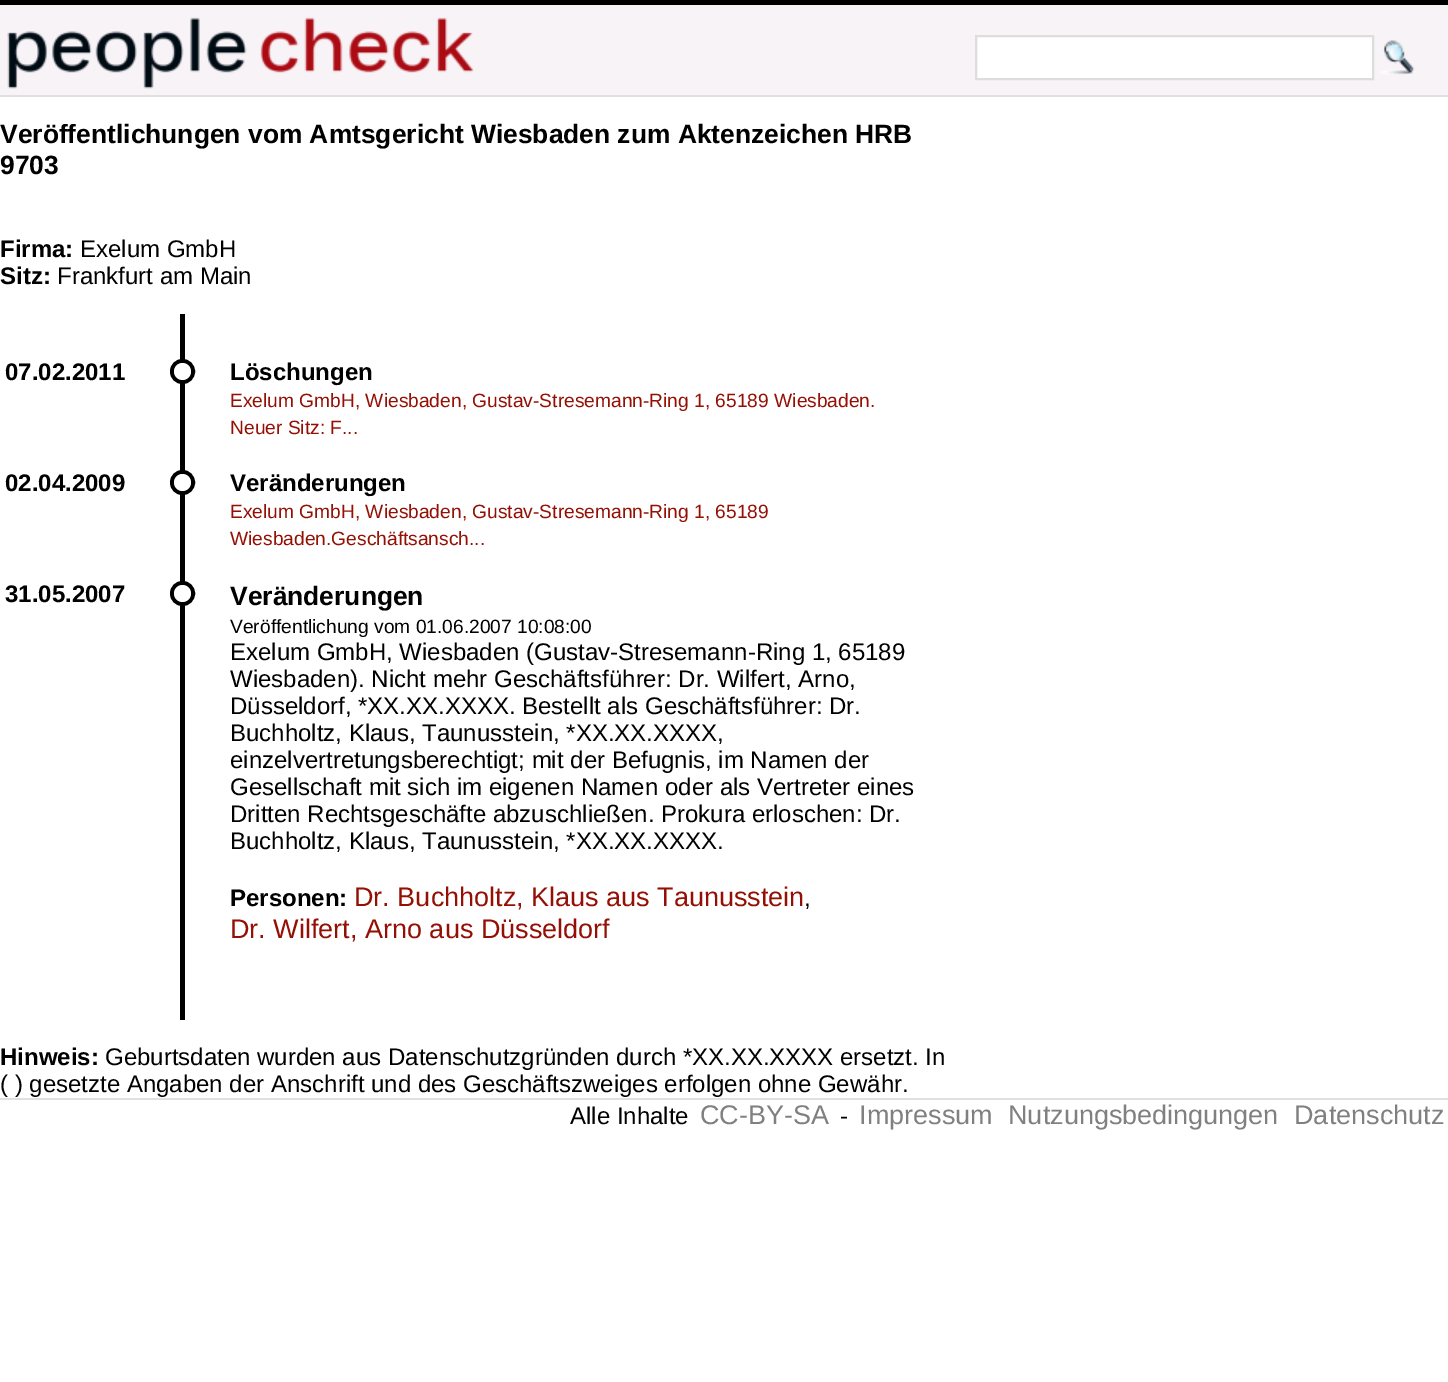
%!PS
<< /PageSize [1448 1382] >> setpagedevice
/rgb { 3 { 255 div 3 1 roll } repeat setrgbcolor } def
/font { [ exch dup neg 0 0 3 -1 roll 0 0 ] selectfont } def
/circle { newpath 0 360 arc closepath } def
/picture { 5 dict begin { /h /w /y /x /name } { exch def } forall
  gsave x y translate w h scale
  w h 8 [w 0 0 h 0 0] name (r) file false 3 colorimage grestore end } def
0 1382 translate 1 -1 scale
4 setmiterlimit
255 255 255 rgb
0 0 1448 1382 rectfill
[
  [0 5 1448 90 247 243 247]
  [0 0 1448 5 0 0 0]
  [0 95 1448 2 224 224 224]
] { aload pop rgb rectfill } forall
(img/1.rgb) 7 17 467 72 picture
255 255 255 rgb
976 36 moveto 1373 36 lineto 1373 79 lineto 976 79 lineto closepath gsave fill grestore
221 221 221 rgb
2 setlinewidth
stroke
(img/2.rgb) 1380 40 39 35 picture
0 0 0 rgb
180 314 5 706 rectfill
5 setlinewidth
182.5 371.5 10 circle stroke
255 255 255 rgb
182.5 371.5 8.5 circle fill
0 0 0 rgb
182.5 482.5 10 circle stroke
255 255 255 rgb
182.5 482.5 8.5 circle fill
0 0 0 rgb
182.5 593.5 10 circle stroke
255 255 255 rgb
182.5 593.5 8.5 circle fill
224 224 224 rgb
0 1098 1448 2 rectfill
/LiberationSans-Bold 26.4 font
0 0 0 rgb
0 143 moveto (Veröffentlichungen vom Amtsgericht Wiesbaden zum Aktenzeichen HRB) show
0 174 moveto (9703) show
/LiberationSans-Bold 24 font
0 257 moveto (Firma:) show
/LiberationSans-Regular 24 font
80 257 moveto (Exelum GmbH) show
/LiberationSans-Bold 24 font
0 284 moveto (Sitz:) show
/LiberationSans-Regular 24 font
57 284 moveto (Frankfurt am Main) show
/LiberationSans-Bold 24 font
5 380 moveto (07.02.2011) show
230 380 moveto (Löschungen) show
/LiberationSans-Regular 19.2 font
148 15 4 rgb
230 407 moveto (Exelum GmbH, Wiesbaden, Gustav-Stresemann-Ring 1, 65189 Wiesbaden.) show
230 434 moveto (Neuer Sitz: F...) show
/LiberationSans-Bold 24 font
0 0 0 rgb
5 491 moveto (02.04.2009) show
230 491 moveto (Veränderungen) show
/LiberationSans-Regular 19.2 font
148 15 4 rgb
230 518 moveto (Exelum GmbH, Wiesbaden, Gustav-Stresemann-Ring 1, 65189) show
230 545 moveto (Wiesbaden.Geschäftsansch...) show
/LiberationSans-Bold 24 font
0 0 0 rgb
5 602 moveto (31.05.2007) show
/LiberationSans-Bold 26.4 font
230 605 moveto (Veränderungen) show
/LiberationSans-Regular 19.2 font
230 633 moveto (Veröffentlichung vom 01.06.2007 10:08:00) show
/LiberationSans-Regular 24 font
[
  [(Exelum GmbH, Wiesbaden \(Gustav-Stresemann-Ring 1, 65189) 230 660]
  [(Wiesbaden\). Nicht mehr Geschäftsführer: Dr. Wilfert, Arno,) 230 687]
  [(Düsseldorf, *XX.XX.XXXX. Bestellt als Geschäftsführer: Dr.) 230 714]
  [(Buchholtz, Klaus, Taunusstein, *XX.XX.XXXX,) 230 741]
  [(einzelvertretungsberechtigt; mit der Befugnis, im Namen der) 230 768]
  [(Gesellschaft mit sich im eigenen Namen oder als Vertreter eines) 230 795]
  [(Dritten Rechtsgeschäfte abzuschließen. Prokura erloschen: Dr.) 230 822]
  [(Buchholtz, Klaus, Taunusstein, *XX.XX.XXXX.) 230 849]
] { aload pop moveto show } forall
/LiberationSans-Bold 24 font
230 906 moveto (Personen:) show
/LiberationSans-Regular 27 font
148 15 4 rgb
354 906 moveto (Dr. Buchholtz, Klaus aus Taunusstein) show
/LiberationSans-Regular 24 font
0 0 0 rgb
804 906 moveto (,) show
/LiberationSans-Regular 27 font
148 15 4 rgb
230 938 moveto (Dr. Wilfert, Arno aus Düsseldorf) show
/LiberationSans-Bold 24 font
0 0 0 rgb
0 1065 moveto (Hinweis:) show
/LiberationSans-Regular 24 font
[
  [(Geburtsdaten wurden aus Datenschutzgründen durch *XX.XX.XXXX ersetzt. In) 105 1065]
  [(\( \) gesetzte Angaben der Anschrift und des Geschäftszweiges erfolgen ohne Gewähr.) 0 1092]
  [(Alle Inhalte) 570 1124]
] { aload pop moveto show } forall
/LiberationSans-Regular 27 font
128 128 128 rgb
700 1124 moveto (CC-BY-SA) show
/LiberationSans-Regular 24 font
0 0 0 rgb
840 1124 moveto (-) show
/LiberationSans-Regular 27 font
128 128 128 rgb
[
  [(Impressum) 859 1124]
  [(Nutzungsbedingungen) 1008 1124]
  [(Datenschutz) 1294 1124]
] { aload pop moveto show } forall
showpage
